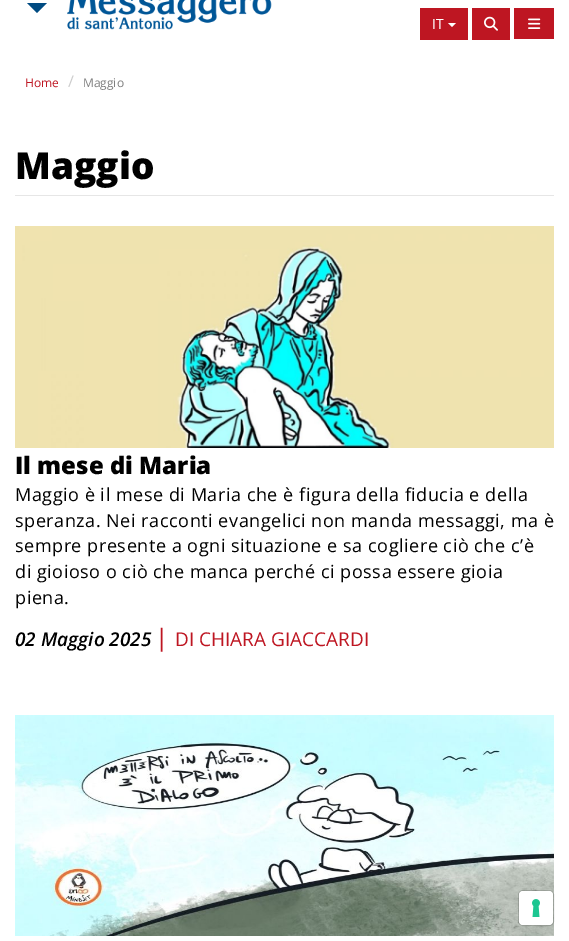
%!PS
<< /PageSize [569 941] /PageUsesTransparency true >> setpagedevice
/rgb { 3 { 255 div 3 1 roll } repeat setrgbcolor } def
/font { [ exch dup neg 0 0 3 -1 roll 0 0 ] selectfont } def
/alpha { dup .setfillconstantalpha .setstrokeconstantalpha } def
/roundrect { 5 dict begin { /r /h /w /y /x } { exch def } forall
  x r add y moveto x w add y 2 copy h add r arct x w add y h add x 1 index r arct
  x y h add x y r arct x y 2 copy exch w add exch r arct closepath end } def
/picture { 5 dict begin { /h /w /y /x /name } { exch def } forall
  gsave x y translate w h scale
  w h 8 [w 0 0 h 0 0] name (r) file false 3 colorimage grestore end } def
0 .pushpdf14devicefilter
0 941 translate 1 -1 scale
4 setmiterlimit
255 255 255 rgb
0 0 569 941 rectfill
0 75 130 rgb
27 3 moveto 47 3 lineto 37 13 lineto closepath fill
(img/1.rgb) 67 0 205 30 picture
190 22 34 rgb
420 8 48 32 rectfill
255 255 255 rgb
448 23 moveto 456 23 lineto 452 27 lineto closepath fill
190 22 34 rgb
472 8 38 32 rectfill
(img/2.rgb) 484 16 14 15 picture
514 8 40 31 rectfill
(img/3.rgb) 528 18 13 11 picture
230 230 230 rgb
15 195 539 1 rectfill
(img/4.rgb) 15 226 539 222 picture
(img/5.rgb) 15 715 539 221 picture
0.15 alpha
0 0 0 rgb
518.5 890.5 35 35 4.5 roundrect stroke
1 alpha
255 255 255 rgb
519 891 34 34 4 roundrect fill
(img/6.rgb) 532 899 8 18 picture
/OpenSans-Regular 14 font
432 29 moveto (IT) show
/OpenSans-Regular 12 font
190 22 34 rgb
25 87 moveto (Home) show
/OpenSans-Regular 16 font
204 204 204 rgb
68 87 moveto (/) show
/OpenSans-Regular 12 font
128 128 128 rgb
83 87 moveto (Maggio) show
/OpenSans-ExtraBold 37 font
0 0 0 rgb
15 179 moveto (Maggio) show
/OpenSans-ExtraBold 24 font
15 474 moveto (Il mese di Maria) show
/OpenSans-Regular 18 font
15 501 moveto 0.55 0 (Maggio è il mese di Maria che è figura della fiducia e della) ashow
15 527 moveto 0.55 0 (speranza. Nei racconti evangelici non manda messaggi, ma è) ashow
15 552 moveto 0.55 0 (sempre presente a ogni situazione e sa cogliere ciò che c’è) ashow
15 578 moveto 0.55 0 (di gioioso o ciò che manca perché ci possa essere gioia) ashow
15 604 moveto 0.55 0 (piena.) ashow
/OpenSans-SemiBoldItalic 19 font
15 646 moveto (02 Maggio 2025) show
/OpenSans-Regular 24 font
190 22 34 rgb
155 646 moveto (|) show
/OpenSans-Regular 19 font
175 646 moveto (DI CHIARA GIACCARDI) show
.poppdf14devicefilter showpage
